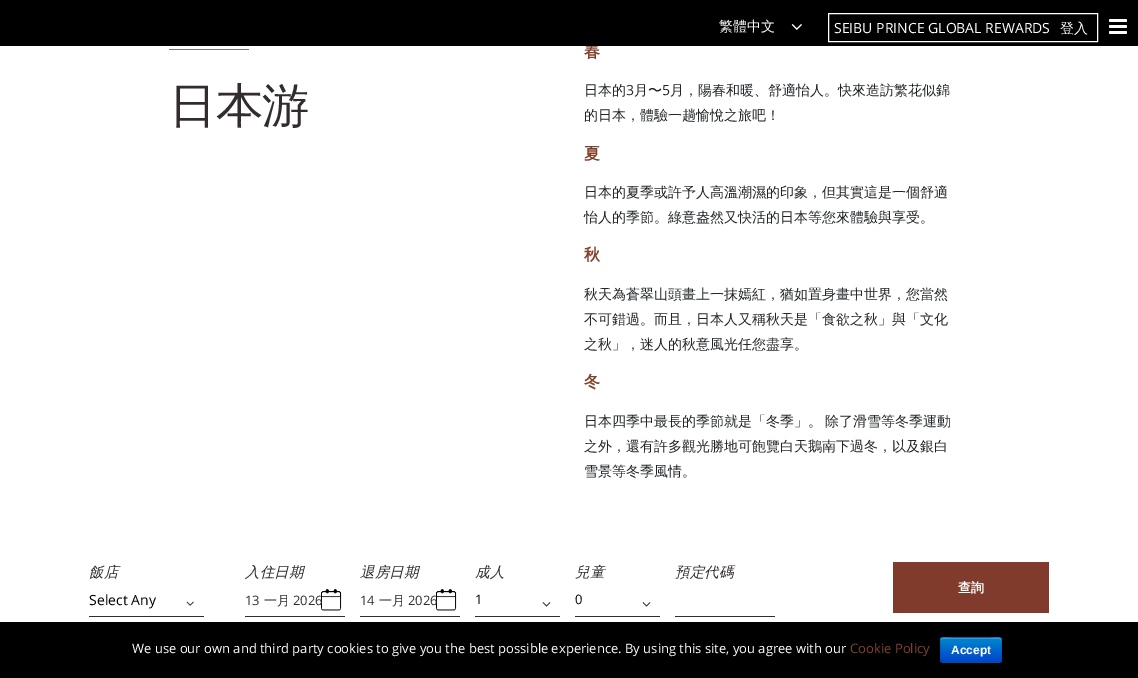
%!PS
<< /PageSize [1138 678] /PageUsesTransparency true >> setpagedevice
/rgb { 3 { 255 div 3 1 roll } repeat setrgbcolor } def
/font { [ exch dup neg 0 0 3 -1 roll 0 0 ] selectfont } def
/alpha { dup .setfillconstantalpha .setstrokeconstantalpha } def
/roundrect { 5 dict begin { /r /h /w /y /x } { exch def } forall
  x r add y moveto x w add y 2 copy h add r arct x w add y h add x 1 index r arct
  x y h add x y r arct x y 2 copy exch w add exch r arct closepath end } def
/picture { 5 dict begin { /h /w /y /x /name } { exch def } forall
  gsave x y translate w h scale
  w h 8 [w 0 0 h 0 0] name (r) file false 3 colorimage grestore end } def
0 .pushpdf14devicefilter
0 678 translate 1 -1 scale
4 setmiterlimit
255 255 255 rgb
0 0 1138 678 rectfill
118 118 118 rgb
169 49 80 1 rectfill
50 45 44 rgb
89 616 115 1 rectfill
(img/3.rgb) 186 601 8 5 picture
(img/4.rgb) 321 589 21 22 picture
245 616 100 1 rectfill
(img/4.rgb) 436 589 21 22 picture
360 616 100 1 rectfill
475 616 85 1 rectfill
(img/5.rgb) 542 602 9 5 picture
575 616 85 1 rectfill
(img/5.rgb) 642 602 9 5 picture
[
  [675 616 100 1 50 45 44]
  [893 562 156 51 128 59 44]
  [0 622 1138 56 0 0 0]
] { aload pop rgb rectfill } forall
0 109 204 rgb
940 637 62 26 3 roundrect fill
gsave
940 637 62 26 3 roundrect clip newpath
gsave 940 638 moveto 1002 638 lineto 1002 662 lineto 940 662 lineto closepath clip newpath
<< /ShadingType 2 /ColorSpace /DeviceRGB /Coords [971 638 971 662] /Extend [true true] /Function << /FunctionType 2 /Domain [0 1] /C0 [0 0.533 0.8] /C1 [0 0.267 0.8] /N 1 >> >> shfill grestore
grestore
0.2 alpha
255 255 255 rgb
943 639 moveto 999 639 lineto 1000 639 1001 640 1001 641 curveto 1001 635 993 638 990 638 curveto 952 638 lineto 949 638 941 635 941 641 curveto 941 640 942 639 943 639 curveto closepath fill
0.25 alpha
0 0 0 rgb
1001 662 moveto 999 662.5 lineto 943 662.5 lineto 941 662 lineto stroke
0.1 alpha
941 662 moveto 939.5 660 940.5 652.5 940.5 650 curveto 940.5 635.5 938 637.5 952.5 637.5 curveto 989.5 637.5 lineto 1004 637.5 1001.5 635.5 1001.5 650 curveto 1001.5 652.5 1002.5 660 1001 662 curveto stroke
/WenQuanYiZenHei-Medium 47.5 font
1 alpha
50 44 44 rgb
169 122 moveto -1 0 (日本游) ashow
/WenQuanYiZenHei-Bold 16 font
129 66 44 rgb
584 57 moveto (春) show
0 0 0 rgb
0 0 1138 46 rectfill
(img/2.rgb) 1109 19 18 15 picture
255 255 255 rgb
828.5 13.5 269 28 rectstroke
/WenQuanYiZenHei-Medium 14 font
1060 33 moveto (登入) show
(img/1.rgb) 791 24 11 6 picture
719 31 moveto (繁體中文) show
/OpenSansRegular-Regular 14 font
834 33 moveto (SEIBU PRINCE GLOBAL REWARDS) show
/WenQuanYiZenHei-Medium 14 font
33 37 41 rgb
584 95 moveto (日本的) show
/OpenSansRegular-Regular 14 font
626 95 moveto (3) show
/WenQuanYiZenHei-Medium 14 font
634 95 moveto (月〜) show
/OpenSansRegular-Regular 14 font
662 95 moveto (5) show
/WenQuanYiZenHei-Medium 14 font
670 95 moveto (月，陽春和暖、舒適怡人。快來造訪繁花似錦) show
584 120 moveto (的日本，體驗一趟愉悅之旅吧！) show
/WenQuanYiZenHei-Bold 16 font
129 66 44 rgb
584 159 moveto (夏) show
/WenQuanYiZenHei-Medium 14 font
33 37 41 rgb
584 197 moveto (日本的夏季或許予人高溫潮濕的印象，但其實這是一個舒適) show
584 222 moveto (怡人的季節。綠意盎然又快活的日本等您來體驗與享受。) show
/WenQuanYiZenHei-Bold 16 font
129 66 44 rgb
584 260 moveto (秋) show
/WenQuanYiZenHei-Medium 14 font
33 37 41 rgb
[
  [(秋天為蒼翠山頭畫上一抹嫣紅，猶如置身畫中世界，您當然) 584 299]
  [(不可錯過。而且，日本人又稱秋天是「食欲之秋」與「文化) 584 324]
  [(之秋」，迷人的秋意風光任您盡享。) 584 349]
] { aload pop moveto show } forall
/WenQuanYiZenHei-Bold 16 font
129 66 44 rgb
584 387 moveto (冬) show
/WenQuanYiZenHei-Medium 14 font
33 37 41 rgb
584 426 moveto -1 0 32 (日本四季中最長的季節就是「冬季」。 除了滑雪等冬季運動) widthshow
584 451 moveto (之外，還有許多觀光勝地可飽覽白天鵝南下過冬，以及銀白) show
584 476 moveto (雪景等冬季風情。) show
/WenQuanYiZenHei-MediumItalic 14.5 font
50 44 44 rgb
89 577 moveto (飯店) show
/OpenSansRegular-Regular 14 font
0 0 0 rgb
89 605 moveto (Select Any) show
/WenQuanYiZenHei-MediumItalic 14.5 font
50 44 44 rgb
245 577 moveto (入住日期) show
/OpenSansRegular-Regular 13 font
245 605 moveto (13) show
/WenQuanYiZenHei-Medium 13 font
264 605 moveto (一月) show
/OpenSansRegular-Regular 13 font
293 605 moveto (2026) show
/WenQuanYiZenHei-MediumItalic 14.5 font
360 577 moveto (退房日期) show
/OpenSansRegular-Regular 13 font
360 605 moveto (14) show
/WenQuanYiZenHei-Medium 13 font
379 605 moveto (一月) show
/OpenSansRegular-Regular 13 font
408 605 moveto (2026) show
/WenQuanYiZenHei-MediumItalic 14.5 font
475 577 moveto (成人) show
/OpenSansRegular-Regular 13 font
0 0 0 rgb
475 604 moveto (1) show
/WenQuanYiZenHei-MediumItalic 14.5 font
50 44 44 rgb
575 577 moveto (兒童) show
/OpenSansRegular-Regular 13 font
0 0 0 rgb
575 604 moveto (0) show
/WenQuanYiZenHei-MediumItalic 14.5 font
50 44 44 rgb
675 577 moveto (預定代碼) show
/WenQuanYiZenHei-Bold 13 font
255 255 255 rgb
958 592 moveto (查詢) show
/OpenSansRegular-Regular 13 font
132 653 moveto (We use our own and third party cookies to give you the best possible experience. By using this site, you agree with our) show
129 66 44 rgb
850 653 moveto (Cookie Policy) show
/LiberationSans-Bold 12 font
255 255 255 rgb
951 654 moveto (Accept) show
.poppdf14devicefilter showpage
